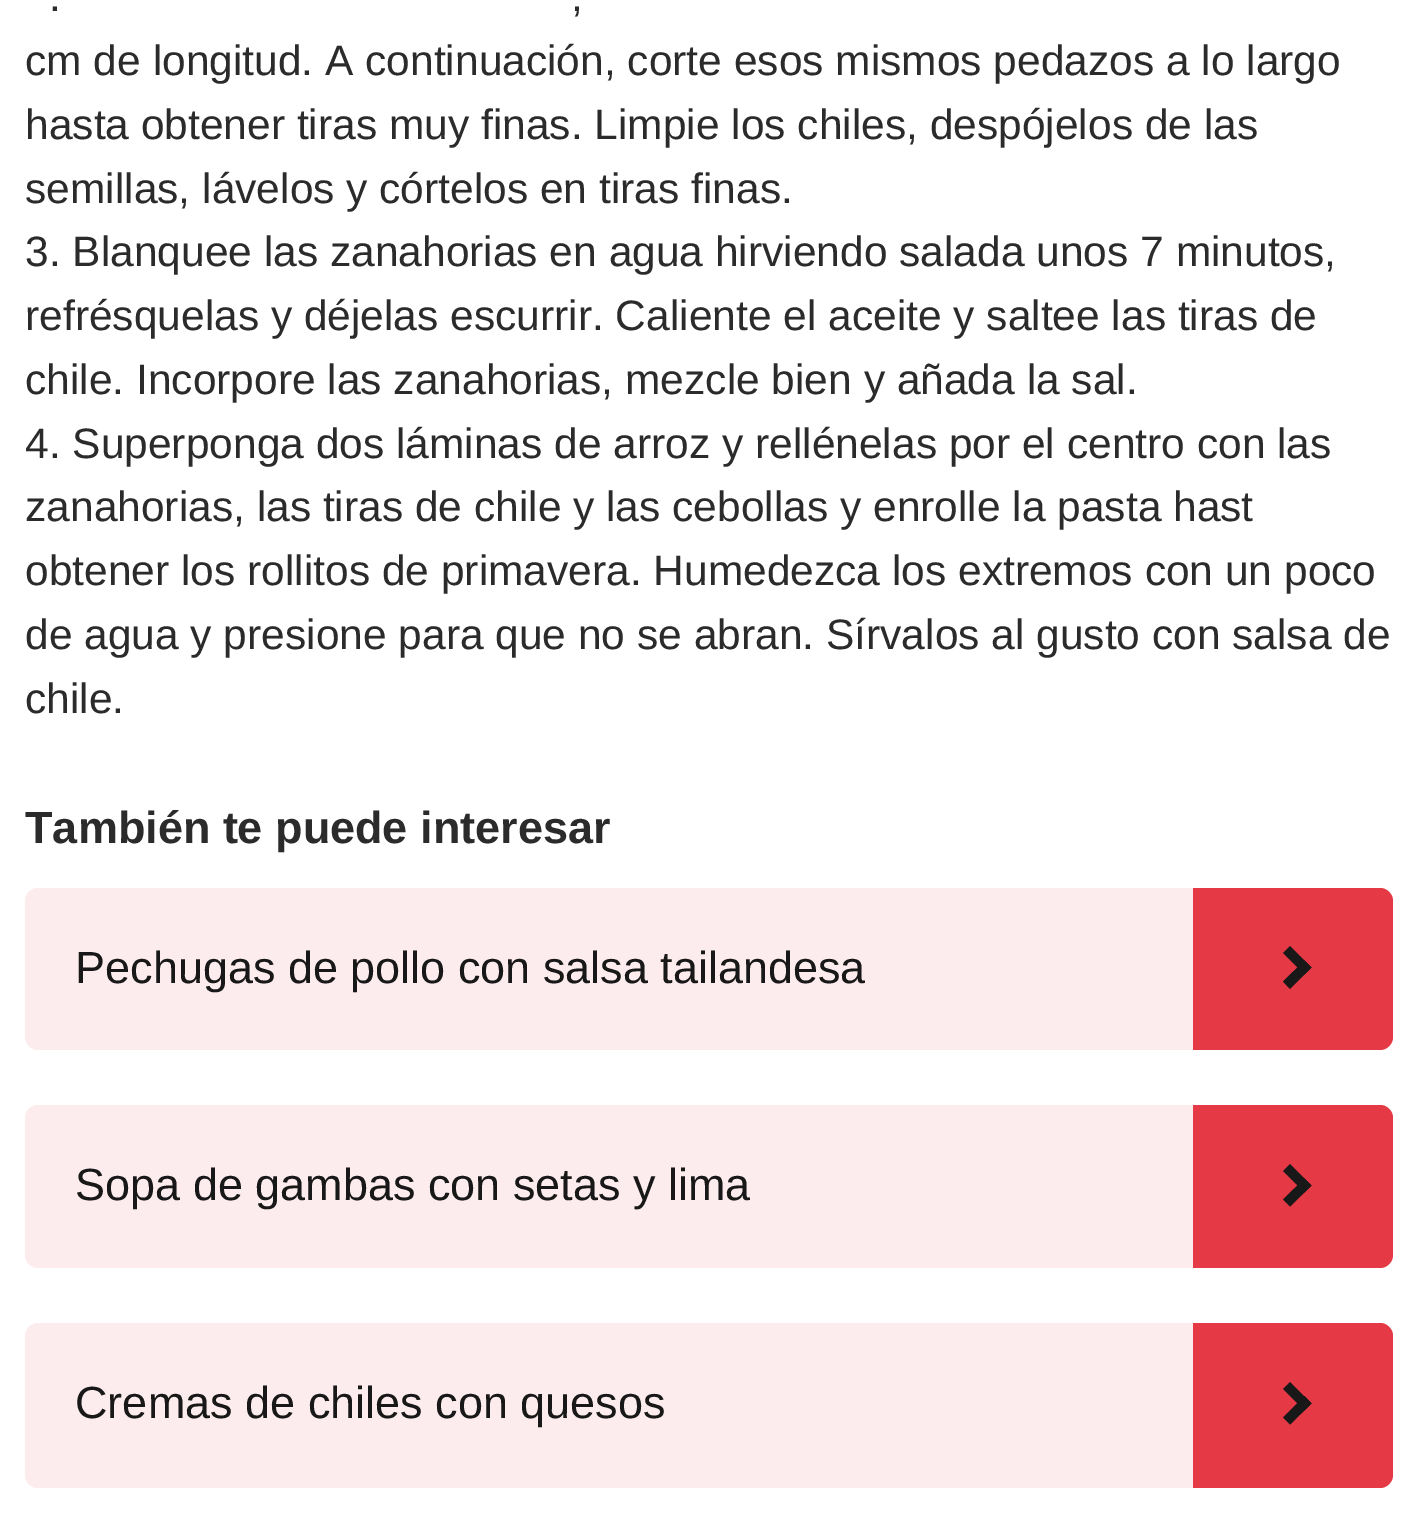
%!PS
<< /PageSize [1416 1528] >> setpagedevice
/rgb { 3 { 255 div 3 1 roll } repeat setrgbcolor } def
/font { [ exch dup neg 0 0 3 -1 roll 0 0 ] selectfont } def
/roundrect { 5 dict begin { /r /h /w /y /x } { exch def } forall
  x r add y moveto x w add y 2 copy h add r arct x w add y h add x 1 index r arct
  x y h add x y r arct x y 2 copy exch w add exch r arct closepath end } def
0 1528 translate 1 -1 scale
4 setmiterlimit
255 255 255 rgb
0 0 1416 1528 rectfill
253 236 237 rgb
25 888 1368 162 13 roundrect fill
230 57 70 rgb
1193 888 moveto 1380 888 lineto 1387 888 1393 894 1393 901 curveto 1393 1037 lineto 1393 1044 1387 1050 1380 1050 curveto 1193 1050 lineto closepath fill
24 24 24 rgb
1290 946 moveto 1311.5 967.5 lineto 1304.5 974.5 lineto 1283 953 lineto closepath fill
1304.5 960.5 moveto 1311.5 967.5 lineto 1290 989 lineto 1283 981.5 lineto closepath fill
253 236 237 rgb
25 1105 1368 163 13 roundrect fill
230 57 70 rgb
1193 1105 moveto 1380 1105 lineto 1387 1105 1393 1111 1393 1118 curveto 1393 1255 lineto 1393 1262 1387 1268 1380 1268 curveto 1193 1268 lineto closepath fill
24 24 24 rgb
1290 1164 moveto 1311.5 1185.5 lineto 1304.5 1192.5 lineto 1283 1171 lineto closepath fill
1304.5 1178.5 moveto 1311.5 1185.5 lineto 1290 1206.5 lineto 1283 1199.5 lineto closepath fill
253 236 237 rgb
25 1323 1368 165 13 roundrect fill
230 57 70 rgb
1193 1323 moveto 1380 1323 lineto 1387 1323 1393 1329 1393 1336 curveto 1393 1475 lineto 1393 1482 1387 1488 1380 1488 curveto 1193 1488 lineto closepath fill
24 24 24 rgb
1290 1382 moveto 1311.5 1403.5 lineto 1304.5 1410.5 lineto 1283 1389 lineto closepath fill
1304.5 1396 moveto 1311.5 1403.5 lineto 1290 1424.5 lineto 1283 1417.5 lineto closepath fill
/LiberationSans-Regular 42.5 font
43 43 43 rgb
[
  [(.) 49 11]
  [(,) 571 11]
  [(cm de longitud. A continuación, corte esos mismos pedazos a lo largo) 25 75]
  [(hasta obtener tiras muy finas. Limpie los chiles, despójelos de las) 25 139]
  [(semillas, lávelos y córtelos en tiras finas.) 25 203]
  [(3. Blanquee las zanahorias en agua hirviendo salada unos 7 minutos,) 25 266]
  [(refrésquelas y déjelas escurrir. Caliente el aceite y saltee las tiras de) 25 330]
  [(chile. Incorpore las zanahorias, mezcle bien y añada la sal.) 25 394]
  [(4. Superponga dos láminas de arroz y rellénelas por el centro con las) 25 458]
  [(zanahorias, las tiras de chile y las cebollas y enrolle la pasta hast) 25 521]
  [(obtener los rollitos de primavera. Humedezca los extremos con un poco) 25 585]
  [(de agua y presione para que no se abran. Sírvalos al gusto con salsa de) 25 649]
  [(chile.) 25 713]
] { aload pop moveto show } forall
/LiberationSans-Bold 45 font
25 843 moveto (También te puede interesar) show
/LiberationSans-Regular 45 font
24 24 24 rgb
[
  [(Pechugas de pollo con salsa tailandesa) 75 983]
  [(Sopa de gambas con setas y lima) 75 1200]
  [(Cremas de chiles con quesos) 75 1418]
] { aload pop moveto show } forall
showpage
